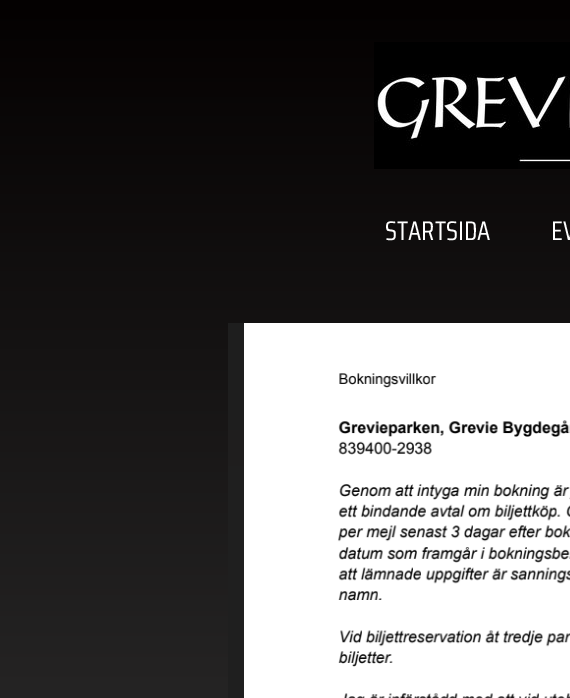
%!PS
<< /PageSize [570 698] >> setpagedevice
/rgb { 3 { 255 div 3 1 roll } repeat setrgbcolor } def
/font { [ exch dup neg 0 0 3 -1 roll 0 0 ] selectfont } def
/picture { 5 dict begin { /h /w /y /x /name } { exch def } forall
  gsave x y translate w h scale
  w h 8 [w 0 0 h 0 0] name (r) file false 3 colorimage grestore end } def
0 698 translate 1 -1 scale
4 setmiterlimit
255 255 255 rgb
0 0 570 698 rectfill
gsave 0 0 moveto 570 0 lineto 570 698 lineto 0 698 lineto closepath clip newpath
<< /ShadingType 2 /ColorSpace /DeviceRGB /Coords [285 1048 285 0] /Extend [true true] /Function << /FunctionType 3 /Domain [0 1] /Functions [<< /FunctionType 2 /Domain [0 1] /C0 [0.153 0.149 0.149] /C1 [0.153 0.149 0.149] /N 1 >> << /FunctionType 2 /Domain [0 1] /C0 [0.153 0.149 0.149] /C1 [0.016 0.004 0.004] /N 1 >>] /Bounds [0.3] /Encode [0 1 0 1] >> >> shfill grestore
(img/1.rgb) 374 42 196 127 picture
(img/2.rgb) 228 323 342 375 picture
/SairaCondensed-Regular 27 font
385 240 moveto (STARTSIDA) show
551 240 moveto (EV) show
showpage
